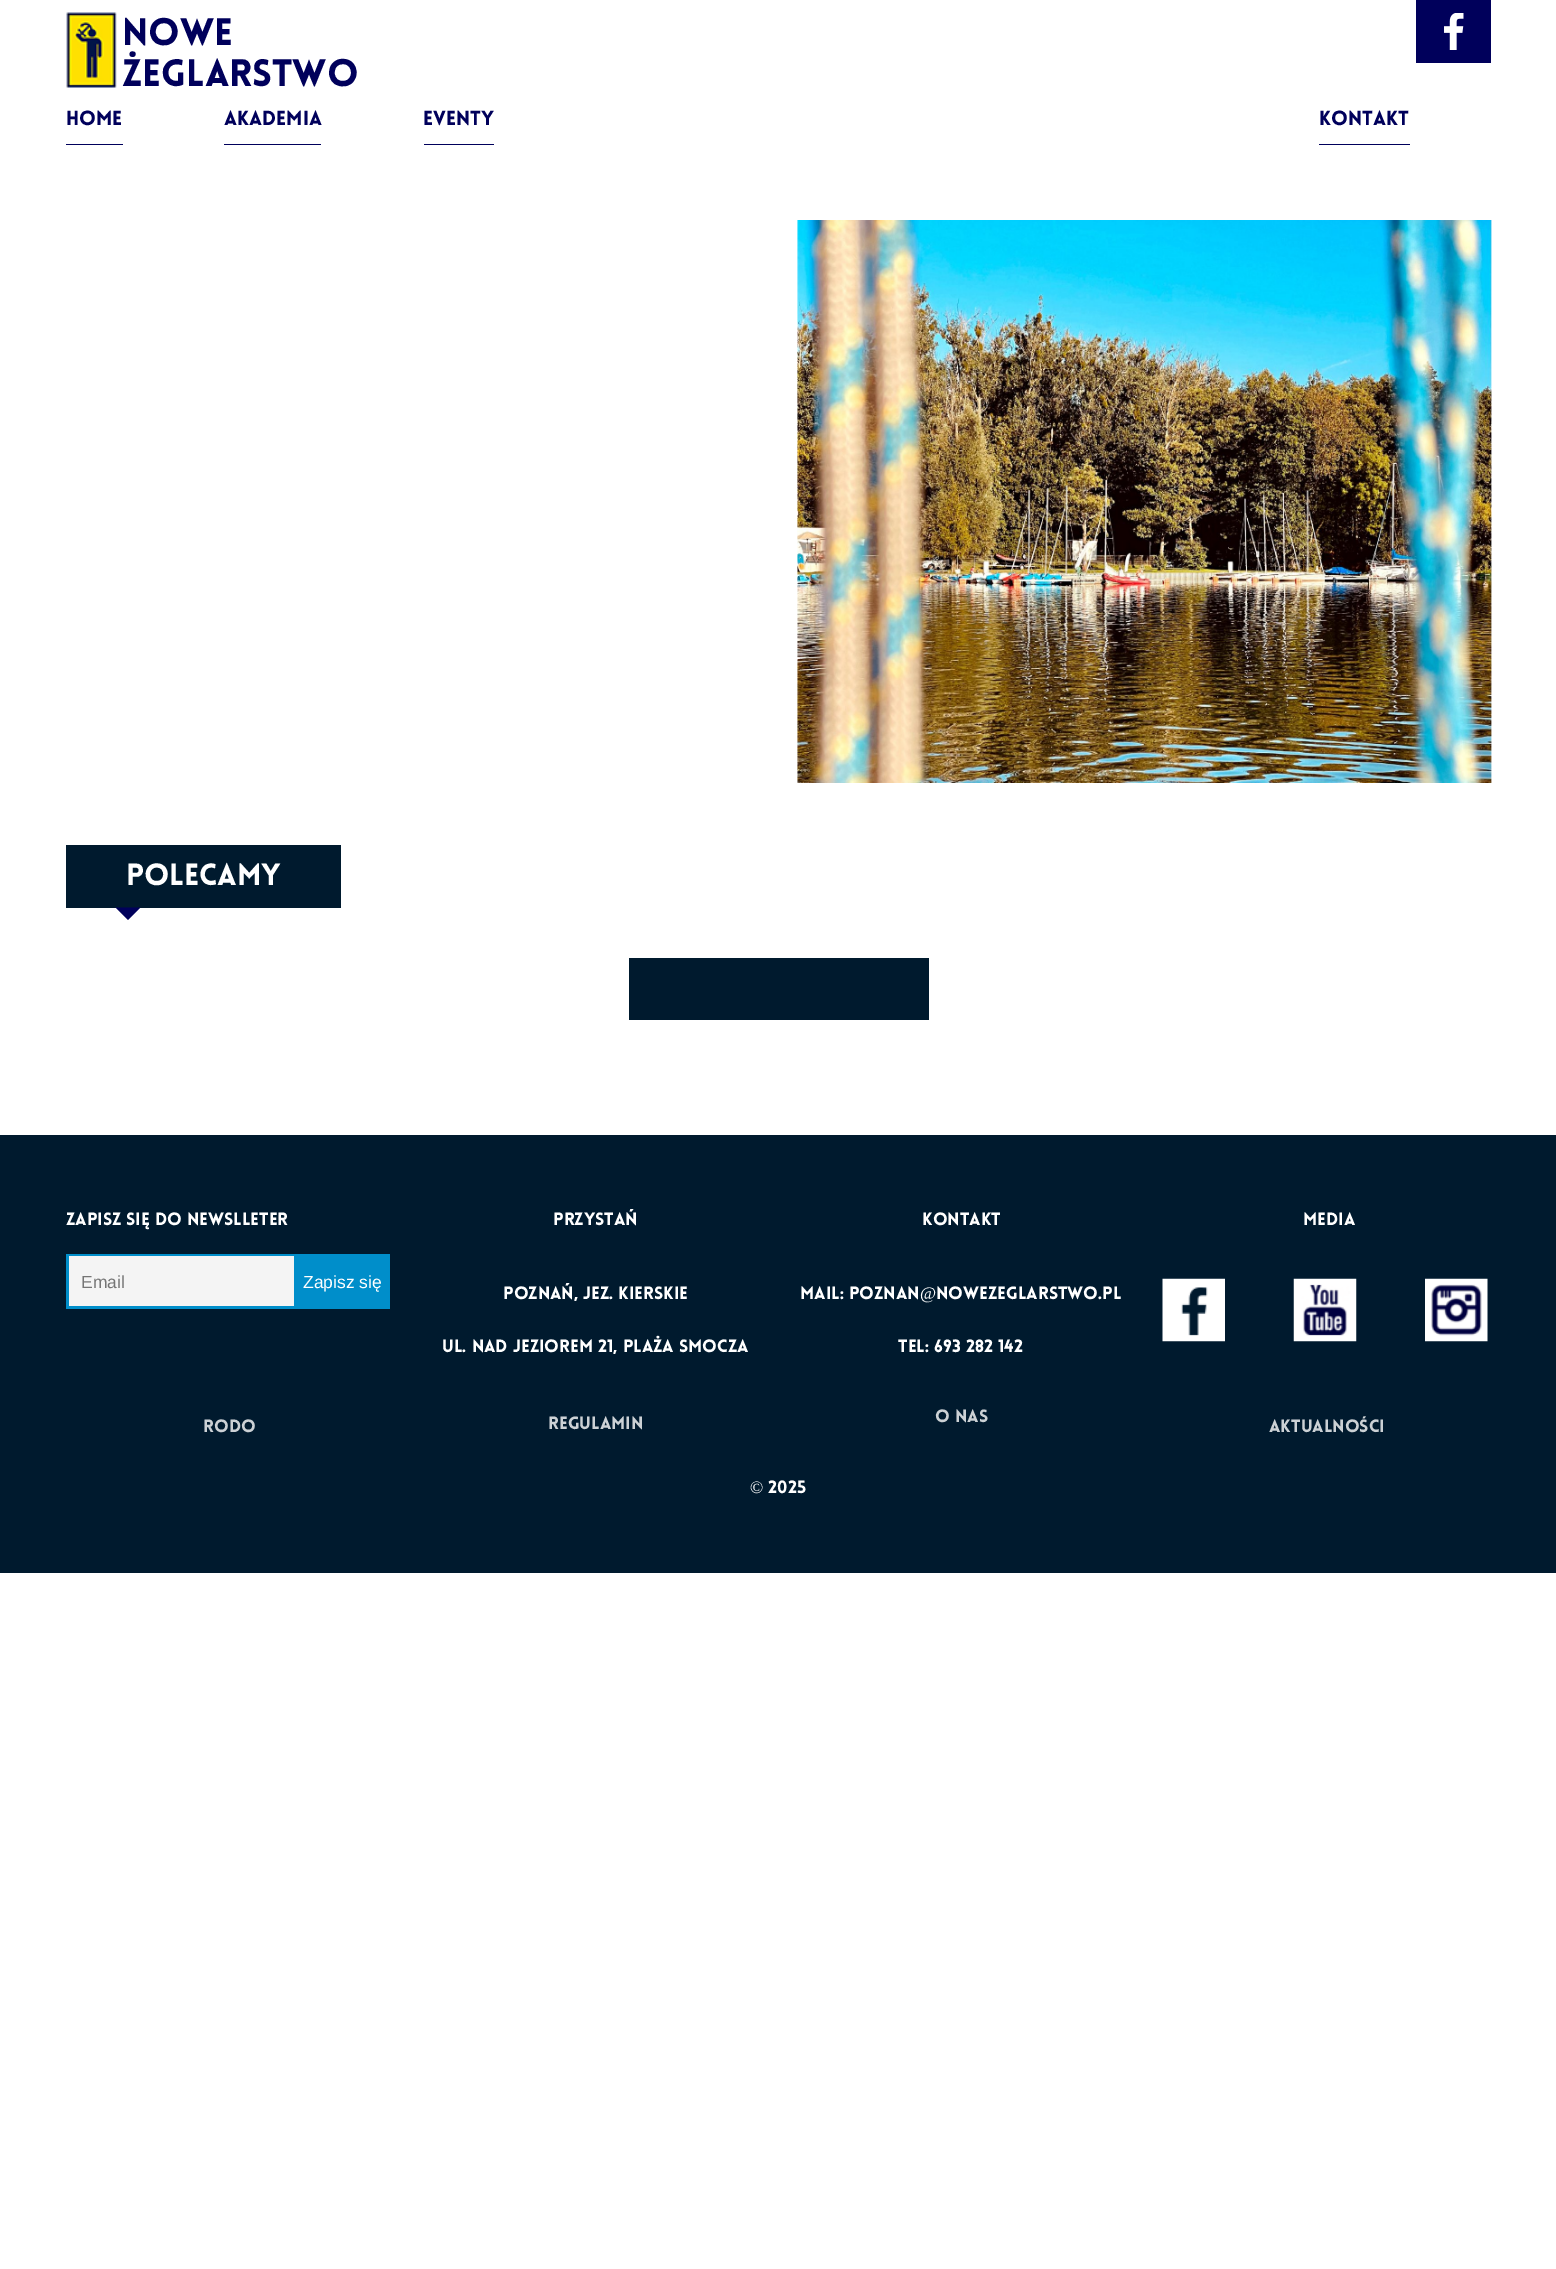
%!PS
<< /PageSize [1556 2269] >> setpagedevice
/rgb { 3 { 255 div 3 1 roll } repeat setrgbcolor } def
/font { [ exch dup neg 0 0 3 -1 roll 0 0 ] selectfont } def
/picture { 5 dict begin { /h /w /y /x /name } { exch def } forall
  gsave x y translate w h scale
  w h 8 [w 0 0 h 0 0] name (r) file false 3 colorimage grestore end } def
0 2269 translate 1 -1 scale
4 setmiterlimit
255 255 255 rgb
0 0 1556 2269 rectfill
(img/1.rgb) 66 12 51 76 picture
0 0 91 rgb
1416 0 75 63 rectfill
(img/2.rgb) 1444 13 20 37 picture
[
  [66 144 57 1 0 0 91]
  [224 144 97 1 0 0 91]
  [424 144 70 1 0 0 91]
  [1319 144 91 1 0 0 91]
] { aload pop rgb rectfill } forall
(img/3.rgb) 797 220 695 563 picture
0 26 46 rgb
66 845 275 63 rectfill
0 0 91 rgb
115.5 907.5 moveto 140.5 907.5 lineto 128 920 lineto closepath fill
[
  [629 958 300 62 0 26 46]
  [0 1135 1556 438 0 26 46]
  [66 1254 324 2 0 142 202]
  [66 1306 324 3 0 142 202]
  [66 1254 3 55 0 142 202]
  [69 1256 225 50 244 244 244]
  [294 1256 96 50 0 142 202]
] { aload pop rgb rectfill } forall
(img/4.rgb) 1162 1278 63 64 picture
(img/5.rgb) 1293 1278 64 64 picture
(img/6.rgb) 1425 1278 63 64 picture
/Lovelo-Black 37.5 font
0 0 91 rgb
122 45 moveto (Nowe) show
122 86 moveto (Żeglarstwo) show
/Lovelo-Black 20 font
[
  [(HOME) 66 125]
  [(AKADEMIA) 224 125]
  [(EVENTY) 423 125]
  [(KONTAKT) 1319 125]
] { aload pop moveto show } forall
/Lovelo-Black 30 font
255 255 255 rgb
126 885 moveto (POLECAMY) show
/Lovelo-Black 17.5 font
66 1225 moveto (Zapisz się do newslleter) show
/LiberationSans-Regular 17.5 font
117 117 117 rgb
81 1288 moveto (Email) show
255 255 255 rgb
303 1288 moveto (Zapisz się) show
/Lovelo-Black 17.5 font
204 209 213 rgb
203 1432 moveto (RODO) show
255 255 255 rgb
[
  [(Przystań) 553 1225]
  [(Poznań, jez. Kierskie) 503 1299]
  [(ul. Nad jeziorem 21, Plaża Smocza) 442 1352]
] { aload pop moveto show } forall
204 209 213 rgb
548 1429 moveto (Regulamin) show
255 255 255 rgb
922 1225 moveto (Kontakt) show
800 1299 moveto (mail: poznan) show
/LiberationSerif-Regular 17.5 font
920 1299 moveto (@) show
/Lovelo-Black 17.5 font
936 1299 moveto (nowezeglarstwo.pl) show
898 1352 moveto (tel: 693 282 142) show
204 209 213 rgb
935 1422 moveto (O nas) show
255 255 255 rgb
1303 1225 moveto (Media) show
204 209 213 rgb
1269 1432 moveto (Aktualności) show
/LiberationSerif-Regular 17.5 font
255 255 255 rgb
750 1493 moveto (©) show
/Lovelo-Black 17.5 font
768 1493 moveto (2025) show
showpage
